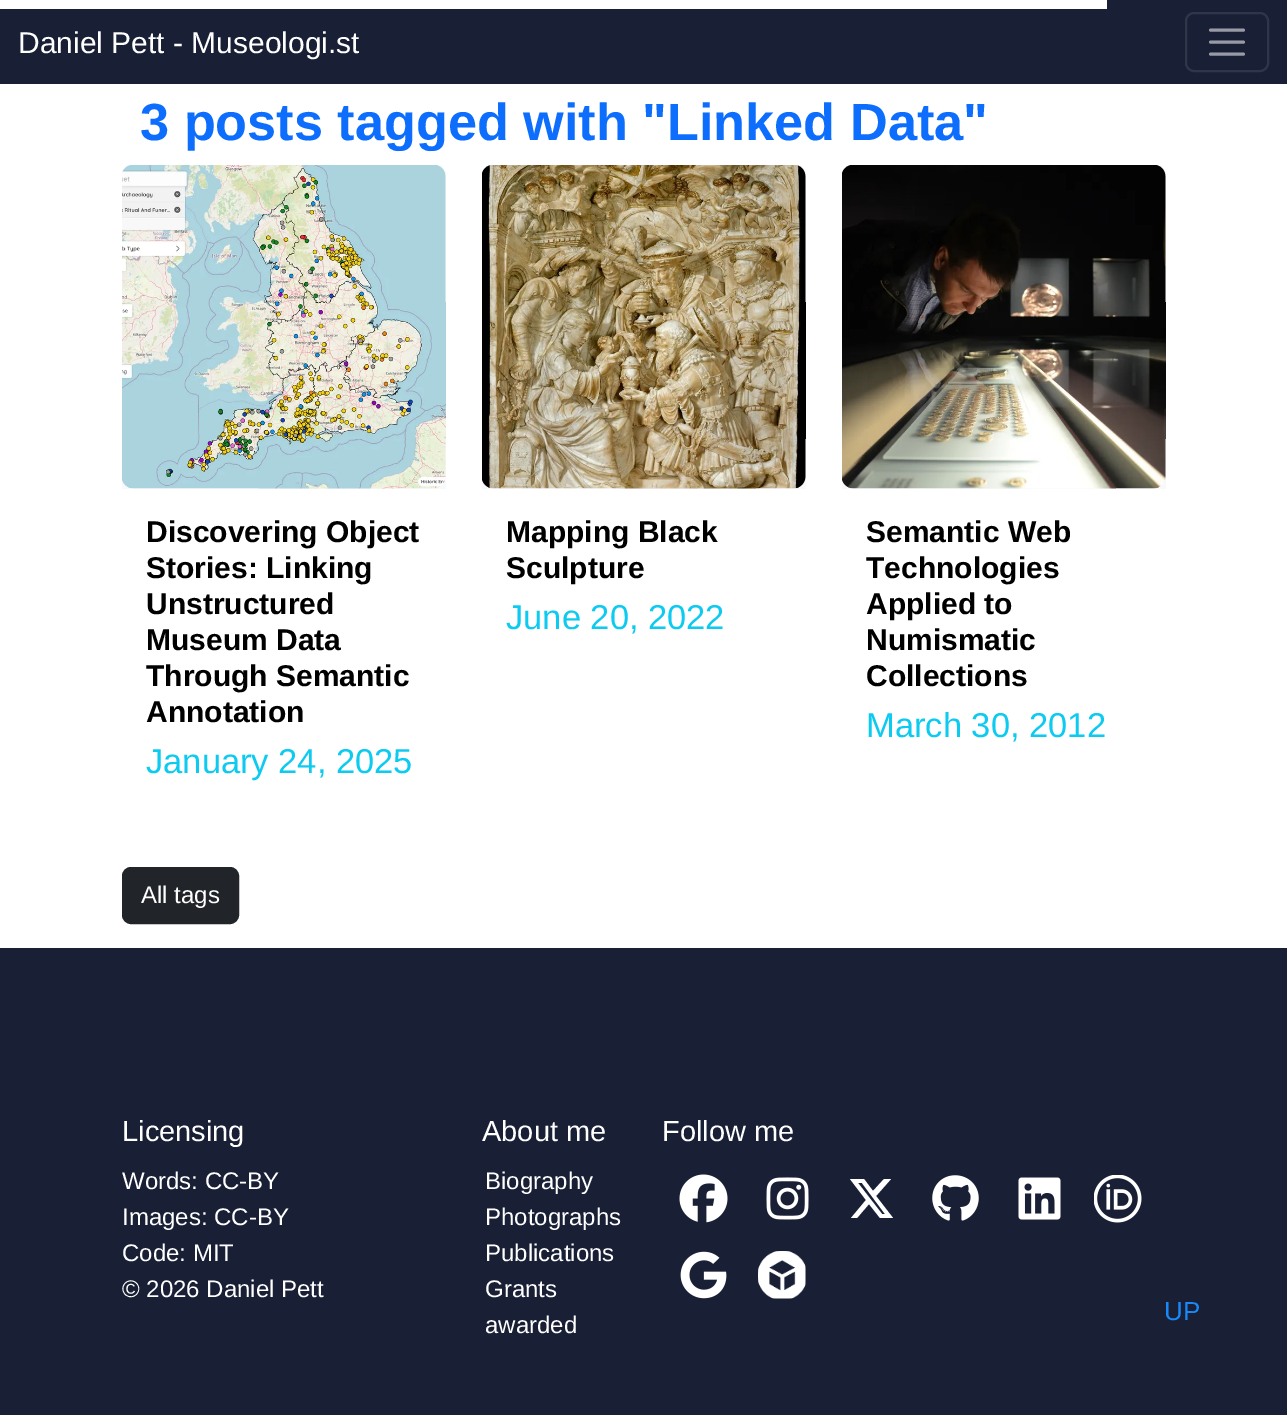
%!PS
<< /PageSize [1287 1415] >> setpagedevice
/rgb { 3 { 255 div 3 1 roll } repeat setrgbcolor } def
/font { [ exch dup neg 0 0 3 -1 roll 0 0 ] selectfont } def
/roundrect { 5 dict begin { /r /h /w /y /x } { exch def } forall
  x r add y moveto x w add y 2 copy h add r arct x w add y h add x 1 index r arct
  x y h add x y r arct x y 2 copy exch w add exch r arct closepath end } def
/picture { 5 dict begin { /h /w /y /x /name } { exch def } forall
  gsave x y translate w h scale
  w h 8 [w 0 0 h 0 0] name (r) file false 3 colorimage grestore end } def
0 1415 translate 1 -1 scale
4 setmiterlimit
255 255 255 rgb
0 0 1287 1415 rectfill
25 32 54 rgb
0 0 1287 84 rectfill
255 255 255 rgb
0 0 1107 9 rectfill
48 54 74 rgb
2 setlinewidth
1186 13 82 58 8 roundrect stroke
152 155 165 rgb
3 setlinewidth
1 setlinecap
1210.5 30 moveto 1243.5 30 lineto 1210.5 42 moveto 1243.5 42 lineto 1210.5 54 moveto 1243.5 54 lineto stroke
248 249 250 rgb
122 165 324 654 9 roundrect fill
(img/1.rgb) 122 165 324 324 picture
255 255 255 rgb
122 489 324 330 rectfill
248 249 250 rgb
482 165 324 510 9 roundrect fill
(img/2.rgb) 482 165 324 324 picture
255 255 255 rgb
482 489 324 186 rectfill
248 249 250 rgb
842 165 324 618 9 roundrect fill
(img/3.rgb) 842 165 324 324 picture
255 255 255 rgb
842 489 324 294 rectfill
33 37 41 rgb
123 868 115 55 8 roundrect gsave fill grestore
2 setlinewidth
0 setlinecap
stroke
25 32 54 rgb
0 948 1287 467 rectfill
(img/4.rgb) 679 1174 49 49 picture
(img/5.rgb) 766 1177 43 43 picture
255 255 255 rgb
884 1179 moveto 891 1179 lineto 876 1196 lineto 893 1218 lineto 880 1218 lineto 869 1204 lineto 857 1218 lineto 851 1218 lineto 866 1200 lineto 850 1179 lineto 864 1179 lineto 873 1191 lineto closepath 882 1214 moveto 885 1214 lineto 862 1183 lineto 858 1183 lineto closepath fill
(img/6.rgb) 932 1175 47 46 picture
(img/7.rgb) 1018 1177 43 43 picture
(img/8.rgb) 1094 1175 48 48 picture
(img/9.rgb) 680 1251 47 48 picture
(img/10.rgb) 758 1251 48 48 picture
/LiberationSans-Regular 30 font
18 53 moveto (Daniel Pett - Museologi.st) show
/LiberationSans-Bold 52.25 font
13 110 253 rgb
140 140 moveto (3 posts tagged with "Linked Data") show
/LiberationSans-Bold 30 font
0 0 0 rgb
[
  [(Discovering Object) 146 542]
  [(Stories: Linking) 146 578]
  [(Unstructured) 146 614]
  [(Museum Data) 146 650]
  [(Through Semantic) 146 686]
  [(Annotation) 146 722]
] { aload pop moveto show } forall
/LiberationSans-Regular 34.5 font
13 202 240 rgb
146 773 moveto (January 24, 2025) show
/LiberationSans-Bold 30 font
0 0 0 rgb
506 542 moveto (Mapping Black) show
506 578 moveto (Sculpture) show
/LiberationSans-Regular 34.5 font
13 202 240 rgb
506 629 moveto (June 20, 2022) show
/LiberationSans-Bold 30 font
0 0 0 rgb
[
  [(Semantic Web) 866 542]
  [(Technologies) 866 578]
  [(Applied to) 866 614]
  [(Numismatic) 866 650]
  [(Collections) 866 686]
] { aload pop moveto show } forall
/LiberationSans-Regular 34.5 font
13 202 240 rgb
866 737 moveto (March 30, 2012) show
/LiberationSans-Regular 24 font
255 255 255 rgb
141 903 moveto (All tags) show
/LiberationSans-Regular 29 font
122 1141 moveto (Licensing) show
/LiberationSans-Regular 24 font
[
  [(Words: CC-BY) 122 1189]
  [(Images: CC-BY) 122 1225]
  [(Code: MIT) 122 1261]
  [(© 2026 Daniel Pett) 122 1297]
] { aload pop moveto show } forall
/LiberationSans-Regular 29 font
482 1141 moveto (About me) show
/LiberationSans-Regular 24 font
[
  [(Biography) 485 1189]
  [(Photographs) 485 1225]
  [(Publications) 485 1261]
  [(Grants) 485 1297]
  [(awarded) 485 1333]
] { aload pop moveto show } forall
/LiberationSans-Regular 29 font
662 1141 moveto (Follow me) show
/LiberationSans-Regular 26 font
25 137 250 rgb
1164 1320 moveto (UP) show
showpage
